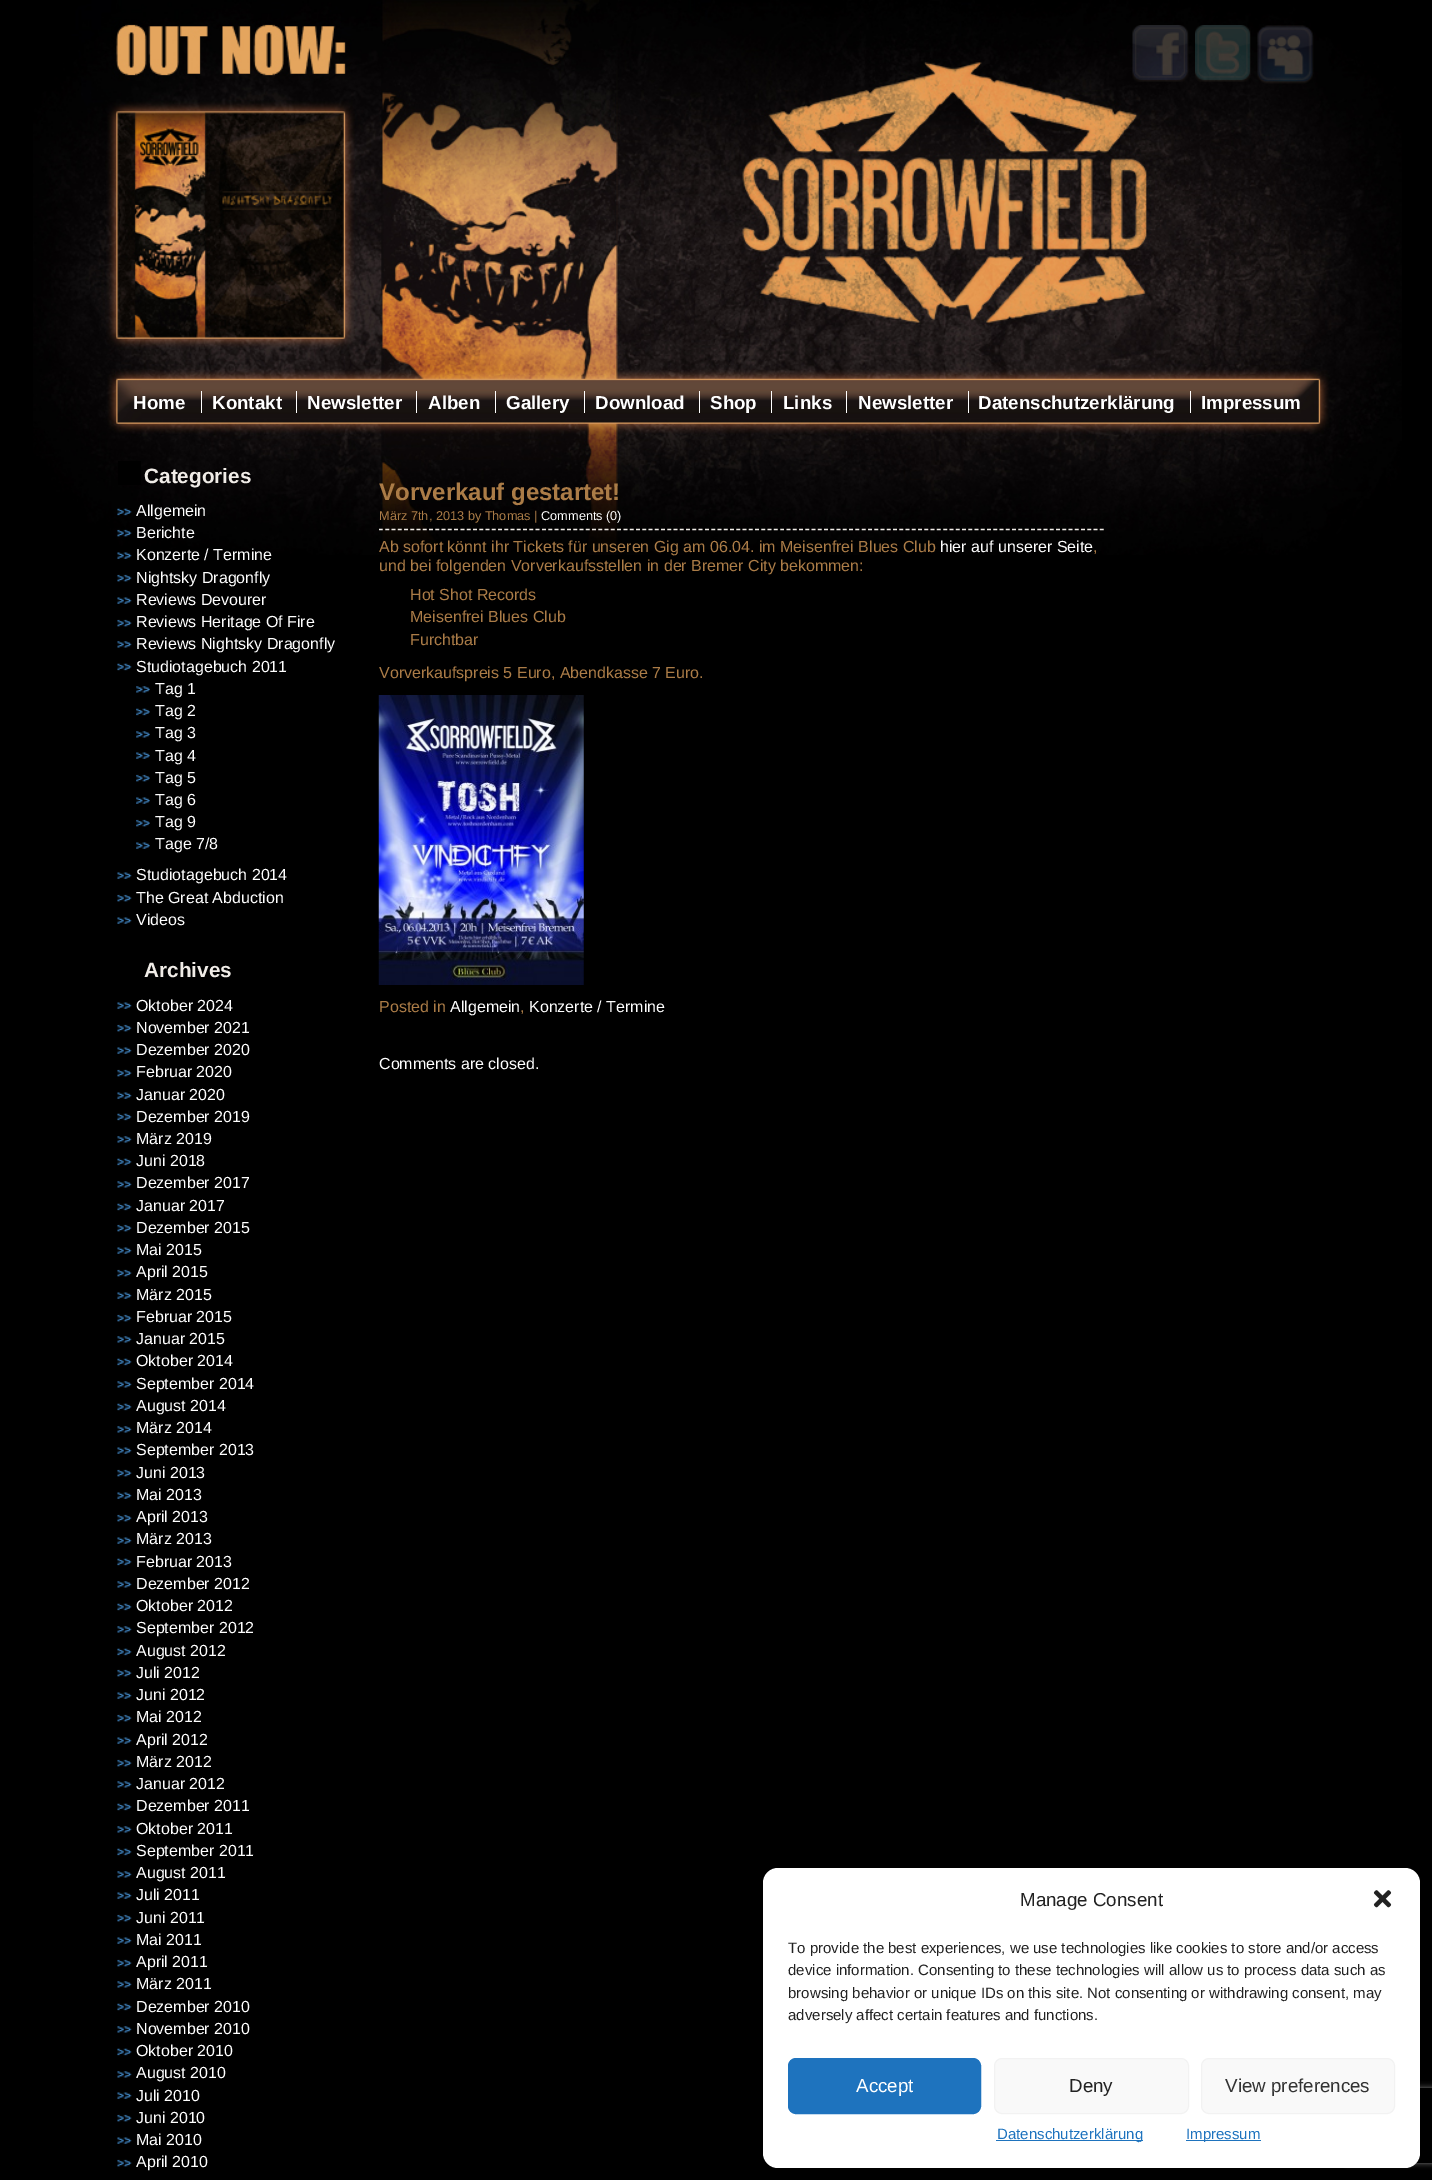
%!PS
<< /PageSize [1432 2180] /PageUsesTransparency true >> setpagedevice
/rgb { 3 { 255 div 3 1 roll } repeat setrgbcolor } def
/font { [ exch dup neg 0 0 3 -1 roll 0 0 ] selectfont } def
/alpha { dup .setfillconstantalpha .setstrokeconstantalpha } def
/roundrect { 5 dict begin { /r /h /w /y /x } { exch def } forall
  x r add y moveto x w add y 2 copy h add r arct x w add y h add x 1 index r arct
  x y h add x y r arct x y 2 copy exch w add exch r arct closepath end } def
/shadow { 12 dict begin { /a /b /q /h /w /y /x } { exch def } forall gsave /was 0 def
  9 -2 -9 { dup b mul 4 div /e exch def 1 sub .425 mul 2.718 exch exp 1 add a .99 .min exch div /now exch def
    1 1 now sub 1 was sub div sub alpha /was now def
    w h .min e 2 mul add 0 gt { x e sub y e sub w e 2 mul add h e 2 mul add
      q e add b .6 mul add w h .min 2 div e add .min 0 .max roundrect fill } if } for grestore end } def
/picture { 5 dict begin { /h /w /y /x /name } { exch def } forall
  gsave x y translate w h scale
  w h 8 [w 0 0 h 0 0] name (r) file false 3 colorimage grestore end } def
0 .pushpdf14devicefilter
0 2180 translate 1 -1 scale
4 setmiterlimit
0 0 0 rgb
0 0 1432 2180 rectfill
(img/1.rgb) 33 0 1369 555 picture
(img/2.rgb) 1132 25 57 57 picture
(img/3.rgb) 1195 25 56 57 picture
(img/4.rgb) 1257 25 57 59 picture
[
  [201 391 1 22 255 255 255]
  [296 391 1 22 255 255 255]
  [416 391 1 22 255 255 255]
  [495 391 1 22 255 255 255]
  [584 391 1 22 255 255 255]
  [699 391 1 22 255 255 255]
  [771 391 1 22 255 255 255]
  [846 391 1 22 255 255 255]
  [968 391 1 22 255 255 255]
  [1190 391 1 22 255 255 255]
  [118 461 23 24 0 0 0]
] { aload pop rgb rectfill } forall
(img/5.rgb) 117 508 15 8 picture
(img/6.rgb) 117 529 15 8 picture
(img/7.rgb) 117 552 15 7 picture
(img/8.rgb) 117 574 15 8 picture
(img/7.rgb) 117 597 15 7 picture
(img/8.rgb) 117 619 15 8 picture
(img/9.rgb) 117 641 15 7 picture
(img/10.rgb) 117 663 15 8 picture
(img/11.rgb) 136 686 14 7 picture
(img/12.rgb) 136 708 14 8 picture
(img/11.rgb) 136 731 14 7 picture
(img/13.rgb) 136 752 14 7 picture
(img/14.rgb) 136 774 14 8 picture
(img/13.rgb) 136 797 14 7 picture
(img/14.rgb) 136 819 14 8 picture
(img/13.rgb) 136 842 14 7 picture
(img/7.rgb) 117 872 15 7 picture
(img/8.rgb) 117 894 15 8 picture
(img/7.rgb) 117 917 15 7 picture
(img/7.rgb) 117 1002 15 7 picture
(img/15.rgb) 117 1024 15 8 picture
(img/7.rgb) 117 1047 15 7 picture
(img/8.rgb) 117 1069 15 8 picture
(img/7.rgb) 117 1092 15 7 picture
(img/10.rgb) 117 1113 15 8 picture
(img/9.rgb) 117 1136 15 7 picture
(img/10.rgb) 117 1158 15 8 picture
(img/9.rgb) 117 1181 15 7 picture
(img/10.rgb) 117 1203 15 8 picture
(img/8.rgb) 117 1224 15 8 picture
(img/7.rgb) 117 1247 15 7 picture
(img/8.rgb) 117 1269 15 8 picture
(img/7.rgb) 117 1292 15 7 picture
(img/8.rgb) 117 1314 15 8 picture
(img/9.rgb) 117 1336 15 7 picture
(img/10.rgb) 117 1358 15 8 picture
(img/9.rgb) 117 1381 15 7 picture
(img/10.rgb) 117 1403 15 8 picture
(img/9.rgb) 117 1426 15 7 picture
(img/7.rgb) 117 1447 15 7 picture
(img/8.rgb) 117 1469 15 8 picture
(img/7.rgb) 117 1492 15 7 picture
(img/8.rgb) 117 1514 15 8 picture
(img/7.rgb) 117 1537 15 7 picture
(img/10.rgb) 117 1558 15 8 picture
(img/9.rgb) 117 1581 15 7 picture
(img/10.rgb) 117 1603 15 8 picture
(img/9.rgb) 117 1626 15 7 picture
(img/10.rgb) 117 1648 15 8 picture
(img/8.rgb) 117 1669 15 8 picture
(img/7.rgb) 117 1692 15 7 picture
(img/8.rgb) 117 1714 15 8 picture
(img/7.rgb) 117 1737 15 7 picture
(img/8.rgb) 117 1759 15 8 picture
(img/9.rgb) 117 1781 15 7 picture
(img/10.rgb) 117 1803 15 8 picture
(img/9.rgb) 117 1826 15 7 picture
(img/10.rgb) 117 1848 15 8 picture
(img/9.rgb) 117 1871 15 7 picture
(img/7.rgb) 117 1892 15 7 picture
(img/8.rgb) 117 1914 15 8 picture
(img/7.rgb) 117 1937 15 7 picture
(img/8.rgb) 117 1959 15 8 picture
(img/9.rgb) 117 1981 15 7 picture
(img/10.rgb) 117 2003 15 8 picture
(img/9.rgb) 117 2026 15 7 picture
(img/16.rgb) 117 2048 15 8 picture
(img/9.rgb) 117 2071 15 7 picture
(img/7.rgb) 117 2092 15 7 picture
(img/8.rgb) 117 2114 15 8 picture
(img/7.rgb) 117 2137 15 7 picture
(img/8.rgb) 117 2159 15 8 picture
240 236 231 rgb
1.2 setlinewidth
[3.75 2.52] 0 setdash
379 529.5 moveto 1104 529.5 lineto stroke
(img/17.rgb) 378 695 206 290 picture
0 0 0 rgb
763 1875 657 300 15 4 0.23 shadow
gsave
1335 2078 moveto 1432 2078 lineto 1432 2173 lineto 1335 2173 lineto closepath 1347.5 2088 moveto 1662.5 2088 lineto 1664 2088 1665 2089 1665 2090.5 curveto 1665 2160.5 lineto 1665 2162 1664 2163 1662.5 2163 curveto 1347.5 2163 lineto 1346 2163 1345 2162 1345 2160.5 curveto 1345 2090.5 lineto 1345 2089 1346 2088 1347.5 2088 curveto closepath eoclip newpath
128 128 128 rgb
1345 2088 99 75 2.5 3 1 shadow
grestore
255 255 255 rgb
763 1868 657 300 15 roundrect fill
(img/18.rgb) 1373 1890 19 18 picture
30 115 190 rgb
788.5 2058.5 192 55 7.5 roundrect gsave fill grestore
1 setlinewidth
[] 0 setdash
stroke
249 249 249 rgb
994.5 2058.5 194 55 7.5 roundrect gsave fill grestore
242 242 242 rgb
stroke
249 249 249 rgb
1201.5 2058.5 193 55 7.5 roundrect gsave fill grestore
242 242 242 rgb
stroke
30 115 190 rgb
996 2140 147 1 rectfill
1186 2140 75 1 rectfill
/LiberationSans-Bold 18.75 font
255 255 255 rgb
[
  [(Home) 133 409]
  [(Kontakt) 212 409]
  [(Newsletter) 307 409]
  [(Alben) 428 409]
  [(Gallery) 506 409]
  [(Download) 595 409]
  [(Shop) 710 409]
  [(Links) 783 409]
  [(Newsletter) 858 409]
  [(Datenschutzerklärung) 978 409]
  [(Impressum) 1201 409]
] { aload pop moveto show } forall
/LiberationSans-Bold 20.75 font
240 236 231 rgb
144 483 moveto (Categories) show
/LiberationSans-Regular 16 font
255 255 255 rgb
[
  [(Allgemein) 136 516]
  [(Berichte) 136 538]
  [(Konzerte / Termine) 136 560]
  [(Nightsky Dragonfly) 136 583]
  [(Reviews Devourer) 136 605]
  [(Reviews Heritage Of Fire) 136 627]
  [(Reviews Nightsky Dragonfly) 136 649]
  [(Studiotagebuch 2011) 136 672]
  [(Tag 1) 155 694]
  [(Tag 2) 155 716]
  [(Tag 3) 155 738]
  [(Tag 4) 155 761]
  [(Tag 5) 155 783]
  [(Tag 6) 155 805]
  [(Tag 9) 155 827]
  [(Tage 7/8) 155 849]
  [(Studiotagebuch 2014) 136 880]
  [(The Great Abduction) 136 903]
  [(Videos) 136 925]
] { aload pop moveto show } forall
/LiberationSans-Bold 20.75 font
240 236 231 rgb
144 977 moveto (Archives) show
/LiberationSans-Regular 16 font
255 255 255 rgb
[
  [(Oktober 2024) 136 1011]
  [(November 2021) 136 1033]
  [(Dezember 2020) 136 1055]
  [(Februar 2020) 136 1077]
  [(Januar 2020) 136 1100]
  [(Dezember 2019) 136 1122]
  [(März 2019) 136 1144]
  [(Juni 2018) 136 1166]
  [(Dezember 2017) 136 1188]
  [(Januar 2017) 136 1211]
  [(Dezember 2015) 136 1233]
  [(Mai 2015) 136 1255]
  [(April 2015) 136 1277]
  [(März 2015) 136 1300]
  [(Februar 2015) 136 1322]
  [(Januar 2015) 136 1344]
  [(Oktober 2014) 136 1366]
  [(September 2014) 136 1389]
  [(August 2014) 136 1411]
  [(März 2014) 136 1433]
  [(September 2013) 136 1455]
  [(Juni 2013) 136 1478]
  [(Mai 2013) 136 1500]
  [(April 2013) 136 1522]
  [(März 2013) 136 1544]
  [(Februar 2013) 136 1567]
  [(Dezember 2012) 136 1589]
  [(Oktober 2012) 136 1611]
  [(September 2012) 136 1633]
  [(August 2012) 136 1656]
  [(Juli 2012) 136 1678]
  [(Juni 2012) 136 1700]
  [(Mai 2012) 136 1722]
  [(April 2012) 136 1745]
  [(März 2012) 136 1767]
  [(Januar 2012) 136 1789]
  [(Dezember 2011) 136 1811]
  [(Oktober 2011) 136 1834]
  [(September 2011) 136 1856]
  [(August 2011) 136 1878]
  [(Juli 2011) 136 1900]
  [(Juni 2011) 136 1923]
  [(Mai 2011) 136 1945]
  [(April 2011) 136 1967]
  [(März 2011) 136 1989]
  [(Dezember 2010) 136 2012]
  [(November 2010) 136 2034]
  [(Oktober 2010) 136 2056]
  [(August 2010) 136 2078]
  [(Juli 2010) 136 2101]
  [(Juni 2010) 136 2123]
  [(Mai 2010) 136 2145]
  [(April 2010) 136 2167]
] { aload pop moveto show } forall
/LiberationSans-Bold 24 font
171 124 71 rgb
379 500 moveto (Vorverkauf gestartet!) show
/LiberationSans-Regular 12.75 font
379 520 moveto (März 7th, 2013 by Thomas |) show
255 255 255 rgb
541 520 moveto (Comments \(0\)) show
/LiberationSans-Regular 16 font
171 124 71 rgb
379 552 moveto (Ab sofort könnt ihr Tickets für unseren Gig am 06.04. im Meisenfrei Blues Club) show
255 255 255 rgb
940 552 moveto (hier auf unserer Seite) show
171 124 71 rgb
[
  [(,) 1093 552]
  [(und bei folgenden Vorverkaufsstellen in der Bremer City bekommen:) 379 571]
  [(Hot Shot Records) 410 600]
  [(Meisenfrei Blues Club) 410 622]
  [(Furchtbar) 410 645]
  [(Vorverkaufspreis 5 Euro, Abendkasse 7 Euro.) 379 678]
  [(Posted in) 379 1012]
] { aload pop moveto show } forall
255 255 255 rgb
450 1012 moveto (Allgemein) show
171 124 71 rgb
520 1012 moveto (,) show
255 255 255 rgb
529 1012 moveto (Konzerte / Termine) show
379 1069 moveto (Comments are closed.) show
/LiberationSans-Regular 18.75 font
34 34 34 rgb
1020 1906 moveto (Manage Consent) show
/LiberationSans-Regular 15 font
[
  [(To provide the best experiences, we use technologies like cookies to store and/or access) 788 1953]
  [(device information. Consenting to these technologies will allow us to process data such as) 788 1975]
  [(browsing behavior or unique IDs on this site. Not consenting or withdrawing consent, may) 788 1998]
  [(adversely affect certain features and functions.) 788 2020]
] { aload pop moveto show } forall
/LiberationSans-Regular 18.75 font
255 255 255 rgb
856 2092 moveto (Accept) show
34 34 34 rgb
1069 2092 moveto (Deny) show
51 51 51 rgb
1225 2092 moveto (View preferences) show
/LiberationSans-Regular 15 font
30 115 190 rgb
997 2139 moveto (Datenschutzerklärung) show
1186 2139 moveto (Impressum) show
.poppdf14devicefilter showpage
